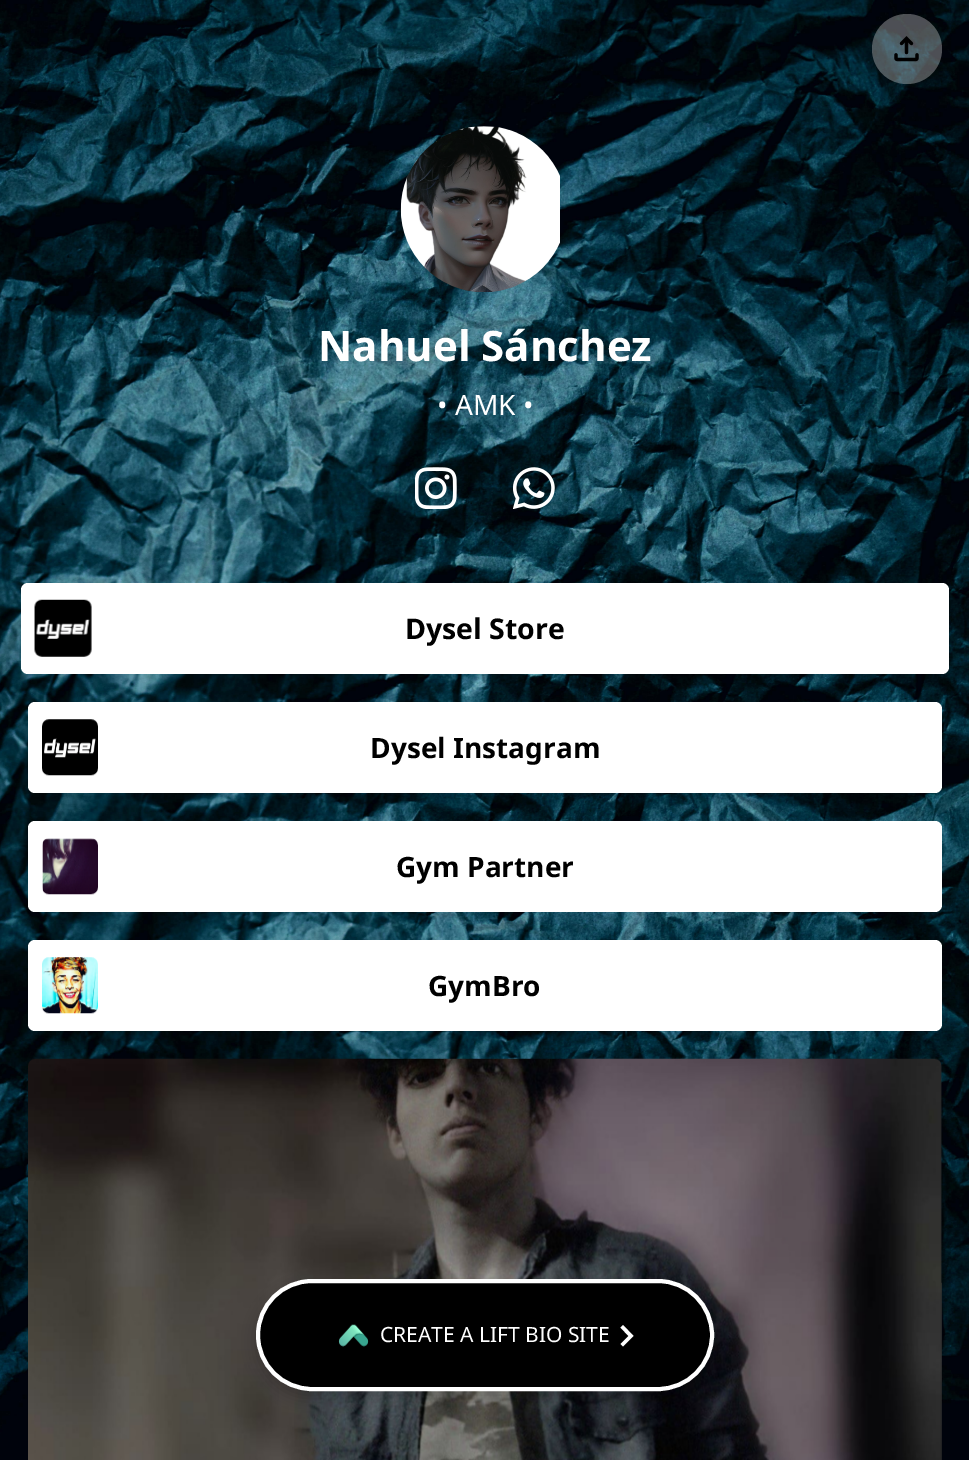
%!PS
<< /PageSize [969 1460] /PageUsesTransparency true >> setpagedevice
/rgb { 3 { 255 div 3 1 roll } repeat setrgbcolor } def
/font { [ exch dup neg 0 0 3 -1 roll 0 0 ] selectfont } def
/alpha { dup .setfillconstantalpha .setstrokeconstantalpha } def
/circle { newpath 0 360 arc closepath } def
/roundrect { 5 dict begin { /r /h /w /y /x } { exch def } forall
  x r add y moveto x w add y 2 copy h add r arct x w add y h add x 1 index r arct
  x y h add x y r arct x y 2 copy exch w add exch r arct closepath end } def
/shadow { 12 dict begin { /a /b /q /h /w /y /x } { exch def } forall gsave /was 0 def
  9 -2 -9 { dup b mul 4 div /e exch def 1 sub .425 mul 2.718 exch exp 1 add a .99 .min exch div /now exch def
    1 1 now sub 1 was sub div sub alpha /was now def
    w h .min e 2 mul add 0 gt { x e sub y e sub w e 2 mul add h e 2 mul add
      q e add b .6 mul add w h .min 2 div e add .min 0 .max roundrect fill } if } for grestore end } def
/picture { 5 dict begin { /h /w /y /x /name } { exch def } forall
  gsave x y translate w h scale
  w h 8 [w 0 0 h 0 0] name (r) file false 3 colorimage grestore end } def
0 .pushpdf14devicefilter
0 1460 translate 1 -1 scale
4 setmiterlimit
255 255 255 rgb
0 0 969 1460 rectfill
(img/1.rgb) 0 0 969 1460 picture
0.3 alpha
907 49 35 circle fill
1 alpha
(img/2.rgb) 894 36 25 26 picture
(img/3.rgb) 400 126 160 166 picture
(img/4.rgb) 415 467 42 42 picture
(img/5.rgb) 513 467 42 42 picture
21 583 928 91 7 roundrect fill
(img/6.rgb) 34 599 58 58 picture
28 702 914 91 7 roundrect fill
(img/7.rgb) 42 719 56 57 picture
28 821 914 91 7 roundrect fill
(img/8.rgb) 42 838 56 57 picture
28 940 914 91 7 roundrect fill
(img/9.rgb) 42 957 56 57 picture
(img/10.rgb) 28 1058 914 402 picture
0 0 0 rgb
256 1286 458 112 56 7 0.2 shadow
258 1281 454 108 54 roundrect gsave fill grestore
255 255 255 rgb
4 setlinewidth
stroke
(img/11.rgb) 338 1324 31 23 picture
620.5 1344 moveto 628.5 1336 lineto 620.5 1327.5 lineto 623 1325 lineto 633.5 1336 lineto 623 1346.5 lineto closepath fill
/NotoSans-Bold 42 font
318 361 moveto (Nahuel Sánchez) show
/NotoSans-Regular 28 font
437 415 moveto (• AMK •) show
/NotoSans-Bold 28.5 font
0 0 0 rgb
405 639 moveto (Dysel Store) show
/NotoSans-Bold 28 font
[
  [(Dysel Instagram) 370 758]
  [(Gym Partner) 396 877]
  [(GymBro) 428 996]
] { aload pop moveto show } forall
/NotoSans-Regular 21 font
255 255 255 rgb
380 1342 moveto (CREATE A LIFT BIO SITE) show
.poppdf14devicefilter showpage
